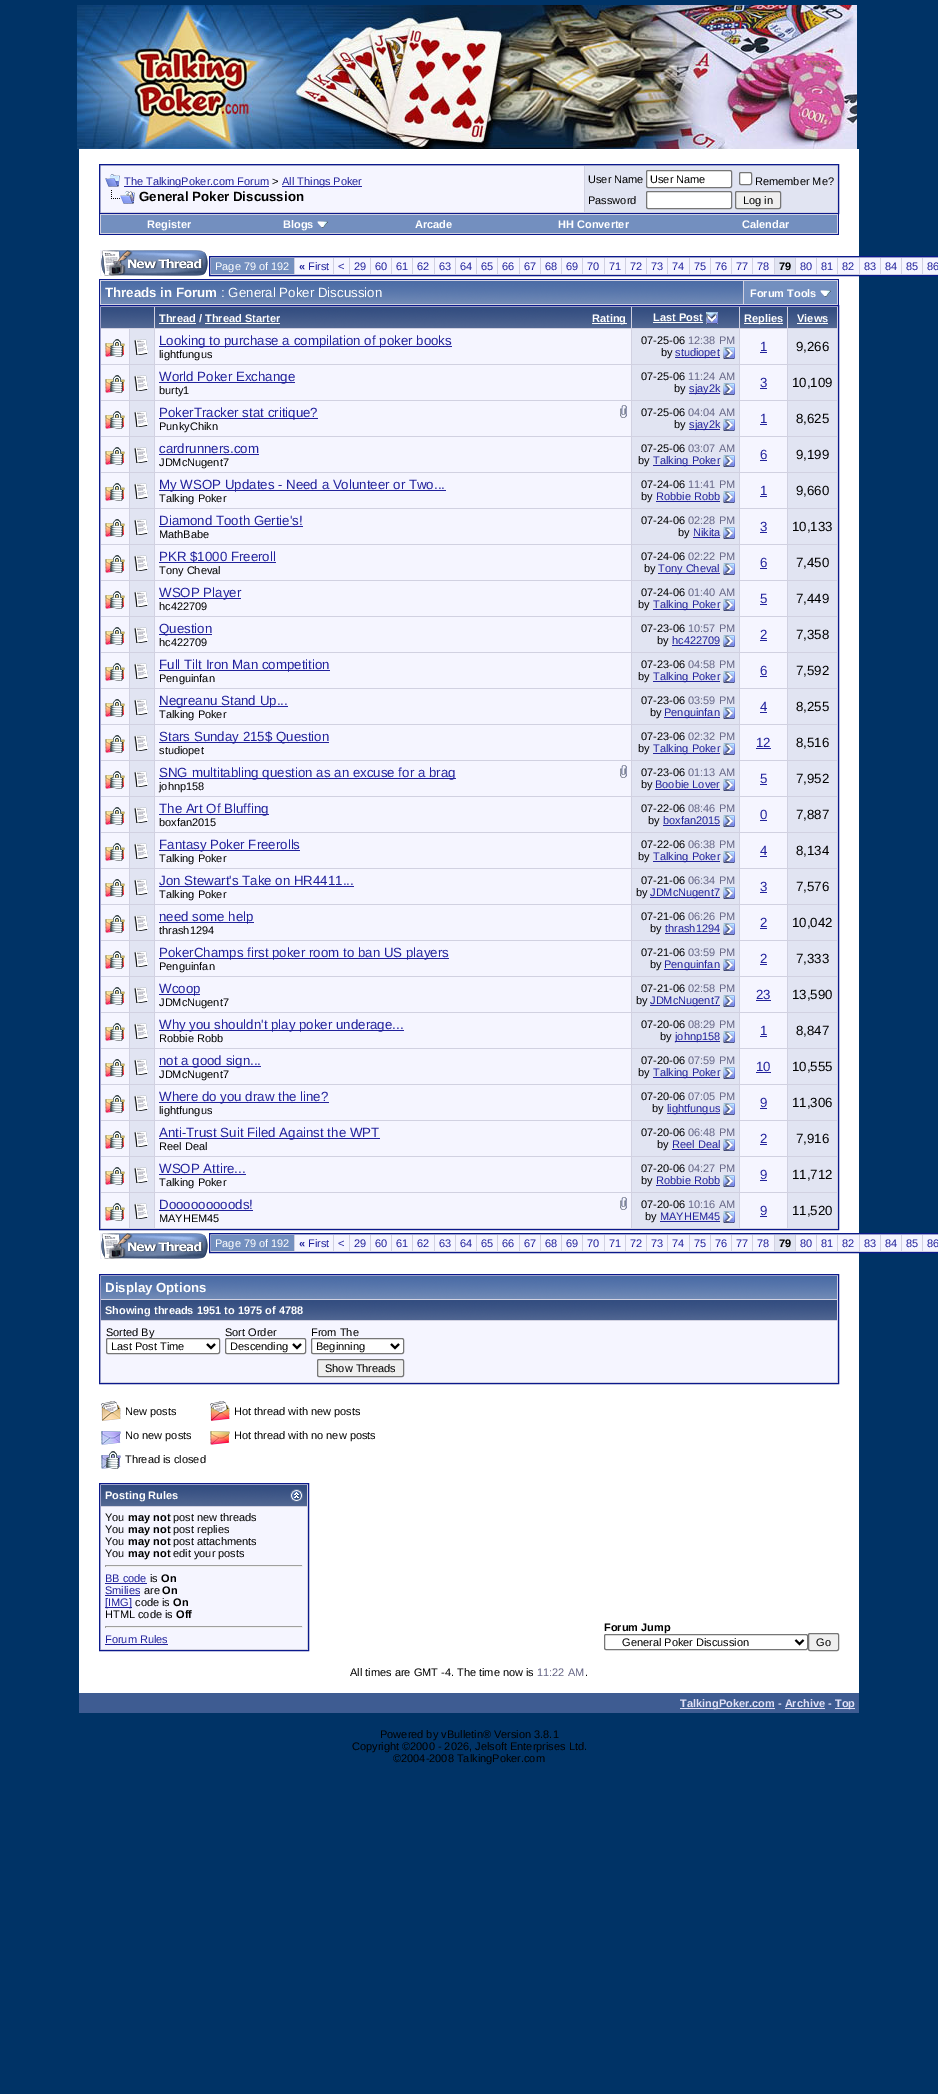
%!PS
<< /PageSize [938 2094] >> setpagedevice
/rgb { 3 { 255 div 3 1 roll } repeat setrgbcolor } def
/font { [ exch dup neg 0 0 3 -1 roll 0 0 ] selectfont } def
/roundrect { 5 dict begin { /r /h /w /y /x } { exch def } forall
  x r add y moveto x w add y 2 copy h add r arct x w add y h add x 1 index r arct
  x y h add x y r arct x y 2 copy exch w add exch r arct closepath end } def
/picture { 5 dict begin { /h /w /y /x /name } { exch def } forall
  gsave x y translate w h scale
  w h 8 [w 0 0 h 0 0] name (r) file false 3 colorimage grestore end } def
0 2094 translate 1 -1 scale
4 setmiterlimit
0 51 102 rgb
0 0 938 2094 rectfill
(img/1.rgb) 77 5 780 144 picture
255 255 255 rgb
79 149 780 1544 rectfill
209 209 225 rgb
99.5 164.5 moveto 838.5 164.5 lineto 838.5 213.5 lineto 99.5 213.5 lineto closepath gsave fill grestore
11 25 140 rgb
stroke
245 245 255 rgb
101 166 483 46 rectfill
(img/2.rgb) 105 174 15 13 picture
34 34 156 rgb
124 186 145 1 rectfill
282 186 80 1 rectfill
(img/3.rgb) 111 190 24 14 picture
225 228 242 rgb
585 166 252 46 rectfill
255 255 255 rgb
646.5 170.5 85 17 1.5 roundrect gsave fill grestore
118 118 118 rgb
stroke
255 255 255 rgb
739.5 172.5 12 12 1.5 roundrect gsave fill grestore
118 118 118 rgb
stroke
255 255 255 rgb
646.5 191.5 85 17 1.5 roundrect gsave fill grestore
118 118 118 rgb
stroke
239 239 239 rgb
735.5 191.5 45 17 1.5 roundrect gsave fill grestore
118 118 118 rgb
stroke
[
  [100 214 738 20 209 209 225]
  [838 214 1 21 11 25 140]
  [99 234 740 1 11 25 140]
  [99 214 1 21 11 25 140]
  [101 215 736 18 115 143 191]
] { aload pop rgb rectfill } forall
(img/4.rgb) 317 221 11 7 picture
(img/5.rgb) 100 250 108 26 picture
209 209 225 rgb
209.5 256.5 moveto 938.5 256.5 lineto 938.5 275.5 lineto 209.5 275.5 lineto closepath gsave fill grestore
11 25 140 rgb
stroke
[
  [211 258 83 16 115 143 191]
  [295 258 38 16 245 245 255]
  [334 258 15 16 245 245 255]
  [350 258 20 16 245 245 255]
  [371 258 20 16 245 245 255]
  [392 258 20 16 245 245 255]
  [413 258 21 16 245 245 255]
  [435 258 20 16 245 245 255]
  [456 258 20 16 245 245 255]
  [477 258 20 16 245 245 255]
  [498 258 21 16 245 245 255]
  [520 258 20 16 245 245 255]
  [541 258 20 16 245 245 255]
  [562 258 20 16 245 245 255]
  [583 258 21 16 245 245 255]
  [605 258 20 16 245 245 255]
  [626 258 20 16 245 245 255]
  [647 258 20 16 245 245 255]
  [668 258 21 16 245 245 255]
  [690 258 20 16 245 245 255]
  [711 258 20 16 245 245 255]
  [732 258 20 16 245 245 255]
  [753 258 21 16 245 245 255]
  [775 258 20 16 225 228 242]
  [796 258 20 16 245 245 255]
  [817 258 20 16 245 245 255]
  [838 258 21 16 245 245 255]
  [860 258 20 16 245 245 255]
  [881 258 20 16 245 245 255]
  [902 258 20 16 245 245 255]
  [923 258 15 16 245 245 255]
  [100 280 738 25 209 209 225]
  [99 279 740 1 11 25 140]
  [838 279 1 26 11 25 140]
  [99 279 1 26 11 25 140]
] { aload pop rgb rectfill } forall
(img/6.rgb) 101 281 642 23 picture
115 143 191 rgb
744 281 93 23 rectfill
(img/4.rgb) 820 290 11 7 picture
209 209 225 rgb
99.5 305.5 moveto 838.5 305.5 lineto 838.5 1229.5 lineto 99.5 1229.5 lineto closepath gsave fill grestore
11 25 140 rgb
stroke
(img/7.rgb) 101 307 53 21 picture
(img/8.rgb) 155 307 476 21 picture
[
  [159 323 37 1 255 255 255]
  [592 323 35 1 255 255 255]
  [205 323 75 1 255 255 255]
] { aload pop rgb rectfill } forall
(img/9.rgb) 632 307 107 21 picture
653 322 50 1 rectfill
(img/10.rgb) 706 312 12 12 picture
(img/11.rgb) 740 307 47 21 picture
744 323 39 1 rectfill
(img/12.rgb) 788 307 49 21 picture
797 323 31 1 rectfill
245 245 255 rgb
101 329 28 35 rectfill
(img/13.rgb) 105 339 20 18 picture
225 228 242 rgb
130 329 24 35 rectfill
(img/14.rgb) 134 339 15 16 picture
[
  [155 329 476 35 245 245 255]
  [159 346 293 1 34 34 156]
  [632 329 107 35 225 228 242]
  [675 357 45 1 34 34 156]
] { aload pop rgb rectfill } forall
(img/15.rgb) 723 347 12 12 picture
[
  [740 329 47 35 245 245 255]
  [760 352 7 1 34 34 156]
  [788 329 49 35 225 228 242]
  [101 365 28 35 245 245 255]
] { aload pop rgb rectfill } forall
(img/13.rgb) 105 375 20 18 picture
225 228 242 rgb
130 365 24 35 rectfill
(img/14.rgb) 134 375 15 16 picture
[
  [155 365 476 35 245 245 255]
  [159 382 136 1 34 34 156]
  [632 365 107 35 225 228 242]
  [689 393 31 1 34 34 156]
] { aload pop rgb rectfill } forall
(img/15.rgb) 723 383 12 12 picture
[
  [740 365 47 35 245 245 255]
  [760 388 7 1 34 34 156]
  [788 365 49 35 225 228 242]
  [101 401 28 35 245 245 255]
] { aload pop rgb rectfill } forall
(img/13.rgb) 105 411 20 18 picture
225 228 242 rgb
130 401 24 35 rectfill
(img/14.rgb) 134 411 15 16 picture
245 245 255 rgb
155 401 476 35 rectfill
34 34 156 rgb
159 418 159 1 rectfill
(img/16.rgb) 620 405 7 13 picture
225 228 242 rgb
632 401 107 35 rectfill
34 34 156 rgb
689 429 31 1 rectfill
(img/15.rgb) 723 419 12 12 picture
[
  [740 401 47 35 245 245 255]
  [760 424 7 1 34 34 156]
  [788 401 49 35 225 228 242]
  [101 437 28 35 245 245 255]
] { aload pop rgb rectfill } forall
(img/13.rgb) 105 447 20 18 picture
225 228 242 rgb
130 437 24 35 rectfill
(img/14.rgb) 134 447 15 16 picture
[
  [155 437 476 35 245 245 255]
  [159 454 100 1 34 34 156]
  [632 437 107 35 225 228 242]
  [653 465 67 1 34 34 156]
] { aload pop rgb rectfill } forall
(img/15.rgb) 723 455 12 12 picture
[
  [740 437 47 35 245 245 255]
  [760 460 7 1 34 34 156]
  [788 437 49 35 225 228 242]
  [101 473 28 35 245 245 255]
] { aload pop rgb rectfill } forall
(img/13.rgb) 105 483 20 18 picture
225 228 242 rgb
130 473 24 35 rectfill
(img/14.rgb) 134 483 15 16 picture
[
  [155 473 476 35 245 245 255]
  [159 490 287 1 34 34 156]
  [632 473 107 35 225 228 242]
  [656 501 64 1 34 34 156]
] { aload pop rgb rectfill } forall
(img/15.rgb) 723 491 12 12 picture
[
  [740 473 47 35 245 245 255]
  [760 496 7 1 34 34 156]
  [788 473 49 35 225 228 242]
  [101 509 28 35 245 245 255]
] { aload pop rgb rectfill } forall
(img/13.rgb) 105 519 20 18 picture
225 228 242 rgb
130 509 24 35 rectfill
(img/14.rgb) 134 519 15 16 picture
[
  [155 509 476 35 245 245 255]
  [159 526 144 1 34 34 156]
  [632 509 107 35 225 228 242]
  [693 537 27 1 34 34 156]
] { aload pop rgb rectfill } forall
(img/15.rgb) 723 527 12 12 picture
[
  [740 509 47 35 245 245 255]
  [760 532 7 1 34 34 156]
  [788 509 49 35 225 228 242]
  [101 545 28 35 245 245 255]
] { aload pop rgb rectfill } forall
(img/13.rgb) 105 555 20 18 picture
225 228 242 rgb
130 545 24 35 rectfill
(img/14.rgb) 134 555 15 16 picture
[
  [155 545 476 35 245 245 255]
  [159 562 117 1 34 34 156]
  [632 545 107 35 225 228 242]
  [658 573 62 1 34 34 156]
] { aload pop rgb rectfill } forall
(img/15.rgb) 723 563 12 12 picture
[
  [740 545 47 35 245 245 255]
  [760 568 7 1 34 34 156]
  [788 545 49 35 225 228 242]
  [101 581 28 35 245 245 255]
] { aload pop rgb rectfill } forall
(img/13.rgb) 105 591 20 18 picture
225 228 242 rgb
130 581 24 35 rectfill
(img/14.rgb) 134 591 15 16 picture
[
  [155 581 476 35 245 245 255]
  [159 598 82 1 34 34 156]
  [632 581 107 35 225 228 242]
  [653 609 67 1 34 34 156]
] { aload pop rgb rectfill } forall
(img/15.rgb) 723 599 12 12 picture
[
  [740 581 47 35 245 245 255]
  [760 604 7 1 34 34 156]
  [788 581 49 35 225 228 242]
  [101 617 28 35 245 245 255]
] { aload pop rgb rectfill } forall
(img/13.rgb) 105 627 20 18 picture
225 228 242 rgb
130 617 24 35 rectfill
(img/14.rgb) 134 627 15 16 picture
[
  [155 617 476 35 245 245 255]
  [159 634 53 1 34 34 156]
  [632 617 107 35 225 228 242]
  [672 645 48 1 34 34 156]
] { aload pop rgb rectfill } forall
(img/15.rgb) 723 635 12 12 picture
[
  [740 617 47 35 245 245 255]
  [760 640 7 1 34 34 156]
  [788 617 49 35 225 228 242]
  [101 653 28 35 245 245 255]
] { aload pop rgb rectfill } forall
(img/13.rgb) 105 663 20 18 picture
225 228 242 rgb
130 653 24 35 rectfill
(img/14.rgb) 134 663 15 16 picture
[
  [155 653 476 35 245 245 255]
  [159 670 171 1 34 34 156]
  [632 653 107 35 225 228 242]
  [653 681 67 1 34 34 156]
] { aload pop rgb rectfill } forall
(img/15.rgb) 723 671 12 12 picture
[
  [740 653 47 35 245 245 255]
  [760 676 7 1 34 34 156]
  [788 653 49 35 225 228 242]
  [101 689 28 35 245 245 255]
] { aload pop rgb rectfill } forall
(img/13.rgb) 105 699 20 18 picture
225 228 242 rgb
130 689 24 35 rectfill
(img/14.rgb) 134 699 15 16 picture
[
  [155 689 476 35 245 245 255]
  [159 706 129 1 34 34 156]
  [632 689 107 35 225 228 242]
  [664 717 56 1 34 34 156]
] { aload pop rgb rectfill } forall
(img/15.rgb) 723 707 12 12 picture
[
  [740 689 47 35 245 245 255]
  [760 712 7 1 34 34 156]
  [788 689 49 35 225 228 242]
  [101 725 28 35 245 245 255]
] { aload pop rgb rectfill } forall
(img/13.rgb) 105 735 20 18 picture
225 228 242 rgb
130 725 24 35 rectfill
(img/14.rgb) 134 735 15 16 picture
[
  [155 725 476 35 245 245 255]
  [159 742 170 1 34 34 156]
  [632 725 107 35 225 228 242]
  [653 753 67 1 34 34 156]
] { aload pop rgb rectfill } forall
(img/15.rgb) 723 743 12 12 picture
[
  [740 725 47 35 245 245 255]
  [756 748 15 1 34 34 156]
  [788 725 49 35 225 228 242]
  [101 761 28 35 245 245 255]
] { aload pop rgb rectfill } forall
(img/13.rgb) 105 771 20 18 picture
225 228 242 rgb
130 761 24 35 rectfill
(img/14.rgb) 134 771 15 16 picture
245 245 255 rgb
155 761 476 35 rectfill
34 34 156 rgb
159 778 297 1 rectfill
(img/16.rgb) 620 765 7 13 picture
225 228 242 rgb
632 761 107 35 rectfill
34 34 156 rgb
655 789 65 1 rectfill
(img/15.rgb) 723 779 12 12 picture
[
  [740 761 47 35 245 245 255]
  [760 784 7 1 34 34 156]
  [788 761 49 35 225 228 242]
  [101 797 28 35 245 245 255]
] { aload pop rgb rectfill } forall
(img/13.rgb) 105 807 20 18 picture
225 228 242 rgb
130 797 24 35 rectfill
(img/14.rgb) 134 807 15 16 picture
[
  [155 797 476 35 245 245 255]
  [159 814 110 1 34 34 156]
  [632 797 107 35 225 228 242]
  [663 825 57 1 34 34 156]
] { aload pop rgb rectfill } forall
(img/15.rgb) 723 815 12 12 picture
[
  [740 797 47 35 245 245 255]
  [760 820 7 1 34 34 156]
  [788 797 49 35 225 228 242]
  [101 833 28 35 245 245 255]
] { aload pop rgb rectfill } forall
(img/13.rgb) 105 843 20 18 picture
225 228 242 rgb
130 833 24 35 rectfill
(img/14.rgb) 134 843 15 16 picture
[
  [155 833 476 35 245 245 255]
  [159 850 141 1 34 34 156]
  [632 833 107 35 225 228 242]
  [653 861 67 1 34 34 156]
] { aload pop rgb rectfill } forall
(img/15.rgb) 723 851 12 12 picture
[
  [740 833 47 35 245 245 255]
  [760 856 7 1 34 34 156]
  [788 833 49 35 225 228 242]
  [101 869 28 35 245 245 255]
] { aload pop rgb rectfill } forall
(img/13.rgb) 105 879 20 18 picture
225 228 242 rgb
130 869 24 35 rectfill
(img/14.rgb) 134 879 15 16 picture
[
  [155 869 476 35 245 245 255]
  [159 886 195 1 34 34 156]
  [632 869 107 35 225 228 242]
  [650 897 70 1 34 34 156]
] { aload pop rgb rectfill } forall
(img/15.rgb) 723 887 12 12 picture
[
  [740 869 47 35 245 245 255]
  [760 892 7 1 34 34 156]
  [788 869 49 35 225 228 242]
  [101 905 28 35 245 245 255]
] { aload pop rgb rectfill } forall
(img/13.rgb) 105 915 20 18 picture
225 228 242 rgb
130 905 24 35 rectfill
(img/14.rgb) 134 915 15 16 picture
[
  [155 905 476 35 245 245 255]
  [159 922 95 1 34 34 156]
  [632 905 107 35 225 228 242]
  [665 933 55 1 34 34 156]
] { aload pop rgb rectfill } forall
(img/15.rgb) 723 923 12 12 picture
[
  [740 905 47 35 245 245 255]
  [760 928 7 1 34 34 156]
  [788 905 49 35 225 228 242]
  [101 941 28 35 245 245 255]
] { aload pop rgb rectfill } forall
(img/13.rgb) 105 951 20 18 picture
225 228 242 rgb
130 941 24 35 rectfill
(img/14.rgb) 134 951 15 16 picture
[
  [155 941 476 35 245 245 255]
  [159 958 290 1 34 34 156]
  [632 941 107 35 225 228 242]
  [664 969 56 1 34 34 156]
] { aload pop rgb rectfill } forall
(img/15.rgb) 723 959 12 12 picture
[
  [740 941 47 35 245 245 255]
  [760 964 7 1 34 34 156]
  [788 941 49 35 225 228 242]
  [101 977 28 35 245 245 255]
] { aload pop rgb rectfill } forall
(img/13.rgb) 105 987 20 18 picture
225 228 242 rgb
130 977 24 35 rectfill
(img/14.rgb) 134 987 15 16 picture
[
  [155 977 476 35 245 245 255]
  [159 994 41 1 34 34 156]
  [632 977 107 35 225 228 242]
  [650 1005 70 1 34 34 156]
] { aload pop rgb rectfill } forall
(img/15.rgb) 723 995 12 12 picture
[
  [740 977 47 35 245 245 255]
  [756 1000 15 1 34 34 156]
  [788 977 49 35 225 228 242]
  [101 1013 28 35 245 245 255]
] { aload pop rgb rectfill } forall
(img/13.rgb) 105 1023 20 18 picture
225 228 242 rgb
130 1013 24 35 rectfill
(img/14.rgb) 134 1023 15 16 picture
[
  [155 1013 476 35 245 245 255]
  [159 1030 245 1 34 34 156]
  [632 1013 107 35 225 228 242]
  [675 1041 45 1 34 34 156]
] { aload pop rgb rectfill } forall
(img/15.rgb) 723 1031 12 12 picture
[
  [740 1013 47 35 245 245 255]
  [760 1036 7 1 34 34 156]
  [788 1013 49 35 225 228 242]
  [101 1049 28 35 245 245 255]
] { aload pop rgb rectfill } forall
(img/13.rgb) 105 1059 20 18 picture
225 228 242 rgb
130 1049 24 35 rectfill
(img/14.rgb) 134 1059 15 16 picture
[
  [155 1049 476 35 245 245 255]
  [159 1066 102 1 34 34 156]
  [632 1049 107 35 225 228 242]
  [653 1077 67 1 34 34 156]
] { aload pop rgb rectfill } forall
(img/15.rgb) 723 1067 12 12 picture
[
  [740 1049 47 35 245 245 255]
  [756 1072 15 1 34 34 156]
  [788 1049 49 35 225 228 242]
  [101 1085 28 35 245 245 255]
] { aload pop rgb rectfill } forall
(img/13.rgb) 105 1095 20 18 picture
225 228 242 rgb
130 1085 24 35 rectfill
(img/14.rgb) 134 1095 15 16 picture
[
  [155 1085 476 35 245 245 255]
  [159 1102 170 1 34 34 156]
  [632 1085 107 35 225 228 242]
  [667 1113 53 1 34 34 156]
] { aload pop rgb rectfill } forall
(img/15.rgb) 723 1103 12 12 picture
[
  [740 1085 47 35 245 245 255]
  [760 1108 7 1 34 34 156]
  [788 1085 49 35 225 228 242]
  [101 1121 28 35 245 245 255]
] { aload pop rgb rectfill } forall
(img/13.rgb) 105 1131 20 18 picture
225 228 242 rgb
130 1121 24 35 rectfill
(img/14.rgb) 134 1131 15 16 picture
[
  [155 1121 476 35 245 245 255]
  [159 1138 221 1 34 34 156]
  [632 1121 107 35 225 228 242]
  [672 1149 48 1 34 34 156]
] { aload pop rgb rectfill } forall
(img/15.rgb) 723 1139 12 12 picture
[
  [740 1121 47 35 245 245 255]
  [760 1144 7 1 34 34 156]
  [788 1121 49 35 225 228 242]
  [101 1157 28 35 245 245 255]
] { aload pop rgb rectfill } forall
(img/13.rgb) 105 1167 20 18 picture
225 228 242 rgb
130 1157 24 35 rectfill
(img/14.rgb) 134 1167 15 16 picture
[
  [155 1157 476 35 245 245 255]
  [159 1174 87 1 34 34 156]
  [632 1157 107 35 225 228 242]
  [656 1185 64 1 34 34 156]
] { aload pop rgb rectfill } forall
(img/15.rgb) 723 1175 12 12 picture
[
  [740 1157 47 35 245 245 255]
  [760 1180 7 1 34 34 156]
  [788 1157 49 35 225 228 242]
  [101 1193 28 35 245 245 255]
] { aload pop rgb rectfill } forall
(img/13.rgb) 105 1203 20 18 picture
225 228 242 rgb
130 1193 24 35 rectfill
(img/14.rgb) 134 1203 15 16 picture
245 245 255 rgb
155 1193 476 35 rectfill
34 34 156 rgb
159 1210 94 1 rectfill
(img/16.rgb) 620 1197 7 13 picture
225 228 242 rgb
632 1193 107 35 rectfill
34 34 156 rgb
660 1221 60 1 rectfill
(img/15.rgb) 723 1211 12 12 picture
[
  [740 1193 47 35 245 245 255]
  [760 1216 7 1 34 34 156]
  [788 1193 49 35 225 228 242]
] { aload pop rgb rectfill } forall
(img/5.rgb) 100 1233 108 26 picture
209 209 225 rgb
209.5 1233.5 moveto 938.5 1233.5 lineto 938.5 1252.5 lineto 209.5 1252.5 lineto closepath gsave fill grestore
11 25 140 rgb
stroke
[
  [211 1235 83 16 115 143 191]
  [295 1235 38 16 245 245 255]
  [334 1235 15 16 245 245 255]
  [350 1235 20 16 245 245 255]
  [371 1235 20 16 245 245 255]
  [392 1235 20 16 245 245 255]
  [413 1235 21 16 245 245 255]
  [435 1235 20 16 245 245 255]
  [456 1235 20 16 245 245 255]
  [477 1235 20 16 245 245 255]
  [498 1235 21 16 245 245 255]
  [520 1235 20 16 245 245 255]
  [541 1235 20 16 245 245 255]
  [562 1235 20 16 245 245 255]
  [583 1235 21 16 245 245 255]
  [605 1235 20 16 245 245 255]
  [626 1235 20 16 245 245 255]
  [647 1235 20 16 245 245 255]
  [668 1235 21 16 245 245 255]
  [690 1235 20 16 245 245 255]
  [711 1235 20 16 245 245 255]
  [732 1235 20 16 245 245 255]
  [753 1235 21 16 245 245 255]
  [775 1235 20 16 225 228 242]
  [796 1235 20 16 245 245 255]
  [817 1235 20 16 245 245 255]
  [838 1235 21 16 245 245 255]
  [860 1235 20 16 245 245 255]
  [881 1235 20 16 245 245 255]
  [902 1235 20 16 245 245 255]
  [923 1235 15 16 245 245 255]
] { aload pop rgb rectfill } forall
209 209 225 rgb
99.5 1274.5 moveto 838.5 1274.5 lineto 838.5 1383.5 lineto 99.5 1383.5 lineto closepath gsave fill grestore
11 25 140 rgb
stroke
(img/17.rgb) 101 1276 736 23 picture
(img/18.rgb) 101 1300 736 20 picture
245 245 255 rgb
101 1321 736 61 rectfill
255 255 255 rgb
225.5 1338.5 80 15 1.5 roundrect gsave fill grestore
118 118 118 rgb
stroke
0 0 0 rgb
2 setlinewidth
293 1344 moveto 297 1348 lineto 301 1344 lineto stroke
255 255 255 rgb
311.5 1338.5 92 15 1.5 roundrect gsave fill grestore
118 118 118 rgb
1 setlinewidth
stroke
0 0 0 rgb
2 setlinewidth
391 1344 moveto 395 1348 lineto 399 1344 lineto stroke
239 239 239 rgb
317.5 1359.5 86 17 1.5 roundrect gsave fill grestore
118 118 118 rgb
1 setlinewidth
stroke
(img/19.rgb) 101 1401 20 20 picture
(img/20.rgb) 210 1401 20 20 picture
(img/21.rgb) 101 1431 20 14 picture
(img/22.rgb) 210 1431 20 14 picture
(img/23.rgb) 101 1451 20 18 picture
209 209 225 rgb
99.5 1483.5 moveto 308.5 1483.5 lineto 308.5 1650.5 lineto 99.5 1650.5 lineto closepath gsave fill grestore
11 25 140 rgb
stroke
(img/24.rgb) 101 1485 206 21 picture
(img/25.rgb) 290 1489 13 13 picture
[
  [101 1507 206 142 245 245 255]
  [105 1565 198 1 159 159 159]
  [302 1565 1 2 238 238 238]
  [105 1566 198 1 238 238 238]
  [105 1565 1 2 159 159 159]
  [105 1583 42 1 34 34 156]
  [105 1595 35 1 34 34 156]
  [105 1607 27 1 34 34 156]
  [105 1626 198 1 159 159 159]
  [302 1626 1 2 238 238 238]
  [105 1627 198 1 238 238 238]
  [105 1626 1 2 159 159 159]
  [105 1644 63 1 34 34 156]
] { aload pop rgb rectfill } forall
118 118 118 rgb
604.5 1634.5 203 15 1.5 roundrect stroke
0 0 0 rgb
2 setlinewidth
795.5 1640 moveto 799.5 1644 lineto 803.5 1640 lineto stroke
239 239 239 rgb
808.5 1633.5 30 17 1.5 roundrect gsave fill grestore
118 118 118 rgb
1 setlinewidth
stroke
[
  [79 1693 780 20 62 92 146]
  [680 1708 95 1 224 224 246]
  [785 1708 40 1 224 224 246]
  [835 1708 20 1 224 224 246]
] { aload pop rgb rectfill } forall
/LiberationSans-Regular 11 font
34 34 156 rgb
124 185 moveto (The TalkingPoker.com Forum) show
0 0 0 rgb
272 185 moveto (>) show
34 34 156 rgb
282 185 moveto (All Things Poker) show
/LiberationSans-Bold 13.3 font
0 0 0 rgb
139 201 moveto (General Poker Discussion) show
/LiberationSans-Regular 11 font
[
  [(User Name) 588 183]
  [(User Name) 650 183]
  [(Remember Me?) 755 185]
  [(Password) 588 204]
  [(Log in) 743 204]
] { aload pop moveto show } forall
/LiberationSans-Bold 11 font
255 255 255 rgb
[
  [(Register) 147 228]
  [(Blogs) 283 228]
  [(Arcade) 415 228]
  [(HH Converter) 558 228]
  [(Calendar) 742 228]
] { aload pop moveto show } forall
/LiberationSans-Regular 11 font
215 270 moveto (Page 79 of 192) show
/LiberationSans-Bold 11 font
34 34 156 rgb
299 270 moveto («) show
/LiberationSans-Regular 11 font
[
  [(First) 308 270]
  [(<) 338 270]
  [(29) 354 270]
  [(60) 375 270]
  [(61) 396 270]
  [(62) 417 270]
  [(63) 439 270]
  [(64) 460 270]
  [(65) 481 270]
  [(66) 502 270]
  [(67) 524 270]
  [(68) 545 270]
  [(69) 566 270]
  [(70) 587 270]
  [(71) 609 270]
  [(72) 630 270]
  [(73) 651 270]
  [(74) 672 270]
  [(75) 694 270]
  [(76) 715 270]
  [(77) 736 270]
  [(78) 757 270]
] { aload pop moveto show } forall
/LiberationSans-Bold 11 font
0 0 0 rgb
779 270 moveto (79) show
/LiberationSans-Regular 11 font
34 34 156 rgb
[
  [(80) 800 270]
  [(81) 821 270]
  [(82) 842 270]
  [(83) 864 270]
  [(84) 885 270]
  [(85) 906 270]
  [(86) 927 270]
] { aload pop moveto show } forall
/LiberationSans-Bold 13.3 font
255 255 255 rgb
105 297 moveto (Threads in Forum) show
/LiberationSans-Regular 13.3 font
221 297 moveto (: General Poker Discussion) show
/LiberationSans-Bold 11 font
[
  [(Forum Tools) 750 297]
  [(Thread / Thread Starter) 159 322]
  [(Rating) 592 322]
  [(Last Post) 653 321]
  [(Replies) 744 322]
  [(Views) 797 322]
] { aload pop moveto show } forall
/LiberationSans-Regular 13.3 font
34 34 156 rgb
159 345 moveto (Looking to purchase a compilation of poker books) show
/LiberationSans-Regular 11 font
0 0 0 rgb
159 358 moveto (lightfungus) show
641 344 moveto (07-25-06) show
102 102 134 rgb
688 344 moveto (12:38 PM) show
0 0 0 rgb
661 356 moveto (by) show
34 34 156 rgb
675 356 moveto (studiopet) show
/LiberationSans-Regular 13.3 font
760 351 moveto (1) show
0 0 0 rgb
796 351 moveto (9,266) show
34 34 156 rgb
159 381 moveto (World Poker Exchange) show
/LiberationSans-Regular 11 font
0 0 0 rgb
159 394 moveto (burty1) show
641 380 moveto (07-25-06) show
102 102 134 rgb
688 380 moveto (11:24 AM) show
0 0 0 rgb
674 392 moveto (by) show
34 34 156 rgb
689 392 moveto (sjay2k) show
/LiberationSans-Regular 13.3 font
760 387 moveto (3) show
0 0 0 rgb
792 387 moveto (10,109) show
34 34 156 rgb
159 417 moveto (PokerTracker stat critique?) show
/LiberationSans-Regular 11 font
0 0 0 rgb
159 430 moveto (PunkyChikn) show
641 416 moveto (07-25-06) show
102 102 134 rgb
688 416 moveto (04:04 AM) show
0 0 0 rgb
674 428 moveto (by) show
34 34 156 rgb
689 428 moveto (sjay2k) show
/LiberationSans-Regular 13.3 font
760 423 moveto (1) show
0 0 0 rgb
796 423 moveto (8,625) show
34 34 156 rgb
159 453 moveto (cardrunners.com) show
/LiberationSans-Regular 11 font
0 0 0 rgb
159 466 moveto (JDMcNugent7) show
641 452 moveto (07-25-06) show
102 102 134 rgb
688 452 moveto (03:07 AM) show
0 0 0 rgb
638 464 moveto (by) show
34 34 156 rgb
653 464 moveto (Talking Poker) show
/LiberationSans-Regular 13.3 font
760 459 moveto (6) show
0 0 0 rgb
796 459 moveto (9,199) show
34 34 156 rgb
159 489 moveto (My WSOP Updates - Need a Volunteer or Two...) show
/LiberationSans-Regular 11 font
0 0 0 rgb
159 502 moveto (Talking Poker) show
641 488 moveto (07-24-06) show
102 102 134 rgb
688 488 moveto (11:41 PM) show
0 0 0 rgb
641 500 moveto (by) show
34 34 156 rgb
656 500 moveto (Robbie Robb) show
/LiberationSans-Regular 13.3 font
760 495 moveto (1) show
0 0 0 rgb
796 495 moveto (9,660) show
34 34 156 rgb
159 525 moveto (Diamond Tooth Gertie's!) show
/LiberationSans-Regular 11 font
0 0 0 rgb
159 538 moveto (MathBabe) show
641 524 moveto (07-24-06) show
102 102 134 rgb
688 524 moveto (02:28 PM) show
0 0 0 rgb
678 536 moveto (by) show
34 34 156 rgb
693 536 moveto (Nikita) show
/LiberationSans-Regular 13.3 font
760 531 moveto (3) show
0 0 0 rgb
792 531 moveto (10,133) show
34 34 156 rgb
159 561 moveto (PKR $1000 Freeroll) show
/LiberationSans-Regular 11 font
0 0 0 rgb
159 574 moveto (Tony Cheval) show
641 560 moveto (07-24-06) show
102 102 134 rgb
688 560 moveto (02:22 PM) show
0 0 0 rgb
644 572 moveto (by) show
34 34 156 rgb
658 572 moveto (Tony Cheval) show
/LiberationSans-Regular 13.3 font
760 567 moveto (6) show
0 0 0 rgb
796 567 moveto (7,450) show
34 34 156 rgb
159 597 moveto (WSOP Player) show
/LiberationSans-Regular 11 font
0 0 0 rgb
159 610 moveto (hc422709) show
641 596 moveto (07-24-06) show
102 102 134 rgb
688 596 moveto (01:40 AM) show
0 0 0 rgb
638 608 moveto (by) show
34 34 156 rgb
653 608 moveto (Talking Poker) show
/LiberationSans-Regular 13.3 font
760 603 moveto (5) show
0 0 0 rgb
796 603 moveto (7,449) show
34 34 156 rgb
159 633 moveto (Question) show
/LiberationSans-Regular 11 font
0 0 0 rgb
159 646 moveto (hc422709) show
641 632 moveto (07-23-06) show
102 102 134 rgb
688 632 moveto (10:57 PM) show
0 0 0 rgb
657 644 moveto (by) show
34 34 156 rgb
672 644 moveto (hc422709) show
/LiberationSans-Regular 13.3 font
760 639 moveto (2) show
0 0 0 rgb
796 639 moveto (7,358) show
34 34 156 rgb
159 669 moveto (Full Tilt Iron Man competition) show
/LiberationSans-Regular 11 font
0 0 0 rgb
159 682 moveto (Penguinfan) show
641 668 moveto (07-23-06) show
102 102 134 rgb
688 668 moveto (04:58 PM) show
0 0 0 rgb
638 680 moveto (by) show
34 34 156 rgb
653 680 moveto (Talking Poker) show
/LiberationSans-Regular 13.3 font
760 675 moveto (6) show
0 0 0 rgb
796 675 moveto (7,592) show
34 34 156 rgb
159 705 moveto (Negreanu Stand Up...) show
/LiberationSans-Regular 11 font
0 0 0 rgb
159 718 moveto (Talking Poker) show
641 704 moveto (07-23-06) show
102 102 134 rgb
688 704 moveto (03:59 PM) show
0 0 0 rgb
650 716 moveto (by) show
34 34 156 rgb
664 716 moveto (Penguinfan) show
/LiberationSans-Regular 13.3 font
760 711 moveto (4) show
0 0 0 rgb
796 711 moveto (8,255) show
34 34 156 rgb
159 741 moveto (Stars Sunday 215$ Question) show
/LiberationSans-Regular 11 font
0 0 0 rgb
159 754 moveto (studiopet) show
641 740 moveto (07-23-06) show
102 102 134 rgb
688 740 moveto (02:32 PM) show
0 0 0 rgb
638 752 moveto (by) show
34 34 156 rgb
653 752 moveto (Talking Poker) show
/LiberationSans-Regular 13.3 font
756 747 moveto (12) show
0 0 0 rgb
796 747 moveto (8,516) show
34 34 156 rgb
159 777 moveto (SNG multitabling question as an excuse for a brag) show
/LiberationSans-Regular 11 font
0 0 0 rgb
159 790 moveto (johnp158) show
641 776 moveto (07-23-06) show
102 102 134 rgb
688 776 moveto (01:13 AM) show
0 0 0 rgb
641 788 moveto (by) show
34 34 156 rgb
655 788 moveto (Boobie Lover) show
/LiberationSans-Regular 13.3 font
760 783 moveto (5) show
0 0 0 rgb
796 783 moveto (7,952) show
34 34 156 rgb
159 813 moveto (The Art Of Bluffing) show
/LiberationSans-Regular 11 font
0 0 0 rgb
159 826 moveto (boxfan2015) show
641 812 moveto (07-22-06) show
102 102 134 rgb
688 812 moveto (08:46 PM) show
0 0 0 rgb
648 824 moveto (by) show
34 34 156 rgb
663 824 moveto (boxfan2015) show
/LiberationSans-Regular 13.3 font
760 819 moveto (0) show
0 0 0 rgb
796 819 moveto (7,887) show
34 34 156 rgb
159 849 moveto (Fantasy Poker Freerolls) show
/LiberationSans-Regular 11 font
0 0 0 rgb
159 862 moveto (Talking Poker) show
641 848 moveto (07-22-06) show
102 102 134 rgb
688 848 moveto (06:38 PM) show
0 0 0 rgb
638 860 moveto (by) show
34 34 156 rgb
653 860 moveto (Talking Poker) show
/LiberationSans-Regular 13.3 font
760 855 moveto (4) show
0 0 0 rgb
796 855 moveto (8,134) show
34 34 156 rgb
159 885 moveto (Jon Stewart's Take on HR4411...) show
/LiberationSans-Regular 11 font
0 0 0 rgb
159 898 moveto (Talking Poker) show
641 884 moveto (07-21-06) show
102 102 134 rgb
688 884 moveto (06:34 PM) show
0 0 0 rgb
636 896 moveto (by) show
34 34 156 rgb
650 896 moveto (JDMcNugent7) show
/LiberationSans-Regular 13.3 font
760 891 moveto (3) show
0 0 0 rgb
796 891 moveto (7,576) show
34 34 156 rgb
159 921 moveto (need some help) show
/LiberationSans-Regular 11 font
0 0 0 rgb
159 934 moveto (thrash1294) show
641 920 moveto (07-21-06) show
102 102 134 rgb
688 920 moveto (06:26 PM) show
0 0 0 rgb
650 932 moveto (by) show
34 34 156 rgb
665 932 moveto (thrash1294) show
/LiberationSans-Regular 13.3 font
760 927 moveto (2) show
0 0 0 rgb
792 927 moveto (10,042) show
34 34 156 rgb
159 957 moveto (PokerChamps first poker room to ban US players) show
/LiberationSans-Regular 11 font
0 0 0 rgb
159 970 moveto (Penguinfan) show
641 956 moveto (07-21-06) show
102 102 134 rgb
688 956 moveto (03:59 PM) show
0 0 0 rgb
650 968 moveto (by) show
34 34 156 rgb
664 968 moveto (Penguinfan) show
/LiberationSans-Regular 13.3 font
760 963 moveto (2) show
0 0 0 rgb
796 963 moveto (7,333) show
34 34 156 rgb
159 993 moveto (Wcoop) show
/LiberationSans-Regular 11 font
0 0 0 rgb
159 1006 moveto (JDMcNugent7) show
641 992 moveto (07-21-06) show
102 102 134 rgb
688 992 moveto (02:58 PM) show
0 0 0 rgb
636 1004 moveto (by) show
34 34 156 rgb
650 1004 moveto (JDMcNugent7) show
/LiberationSans-Regular 13.3 font
756 999 moveto (23) show
0 0 0 rgb
792 999 moveto (13,590) show
34 34 156 rgb
159 1029 moveto (Why you shouldn't play poker underage...) show
/LiberationSans-Regular 11 font
0 0 0 rgb
159 1042 moveto (Robbie Robb) show
641 1028 moveto (07-20-06) show
102 102 134 rgb
688 1028 moveto (08:29 PM) show
0 0 0 rgb
660 1040 moveto (by) show
34 34 156 rgb
675 1040 moveto (johnp158) show
/LiberationSans-Regular 13.3 font
760 1035 moveto (1) show
0 0 0 rgb
796 1035 moveto (8,847) show
34 34 156 rgb
159 1065 moveto (not a good sign...) show
/LiberationSans-Regular 11 font
0 0 0 rgb
159 1078 moveto (JDMcNugent7) show
641 1064 moveto (07-20-06) show
102 102 134 rgb
688 1064 moveto (07:59 PM) show
0 0 0 rgb
638 1076 moveto (by) show
34 34 156 rgb
653 1076 moveto (Talking Poker) show
/LiberationSans-Regular 13.3 font
756 1071 moveto (10) show
0 0 0 rgb
792 1071 moveto (10,555) show
34 34 156 rgb
159 1101 moveto (Where do you draw the line?) show
/LiberationSans-Regular 11 font
0 0 0 rgb
159 1114 moveto (lightfungus) show
641 1100 moveto (07-20-06) show
102 102 134 rgb
688 1100 moveto (07:05 PM) show
0 0 0 rgb
652 1112 moveto (by) show
34 34 156 rgb
667 1112 moveto (lightfungus) show
/LiberationSans-Regular 13.3 font
760 1107 moveto (9) show
0 0 0 rgb
792 1107 moveto (11,306) show
34 34 156 rgb
159 1137 moveto (Anti-Trust Suit Filed Against the WPT) show
/LiberationSans-Regular 11 font
0 0 0 rgb
159 1150 moveto (Reel Deal) show
641 1136 moveto (07-20-06) show
102 102 134 rgb
688 1136 moveto (06:48 PM) show
0 0 0 rgb
657 1148 moveto (by) show
34 34 156 rgb
672 1148 moveto (Reel Deal) show
/LiberationSans-Regular 13.3 font
760 1143 moveto (2) show
0 0 0 rgb
796 1143 moveto (7,916) show
34 34 156 rgb
159 1173 moveto (WSOP Attire...) show
/LiberationSans-Regular 11 font
0 0 0 rgb
159 1186 moveto (Talking Poker) show
641 1172 moveto (07-20-06) show
102 102 134 rgb
688 1172 moveto (04:27 PM) show
0 0 0 rgb
641 1184 moveto (by) show
34 34 156 rgb
656 1184 moveto (Robbie Robb) show
/LiberationSans-Regular 13.3 font
760 1179 moveto (9) show
0 0 0 rgb
792 1179 moveto (11,712) show
34 34 156 rgb
159 1209 moveto (Dooooooooods!) show
/LiberationSans-Regular 11 font
0 0 0 rgb
159 1222 moveto (MAYHEM45) show
641 1208 moveto (07-20-06) show
102 102 134 rgb
688 1208 moveto (10:16 AM) show
0 0 0 rgb
645 1220 moveto (by) show
34 34 156 rgb
660 1220 moveto (MAYHEM45) show
/LiberationSans-Regular 13.3 font
760 1215 moveto (9) show
0 0 0 rgb
792 1215 moveto (11,520) show
/LiberationSans-Regular 11 font
255 255 255 rgb
215 1247 moveto (Page 79 of 192) show
/LiberationSans-Bold 11 font
34 34 156 rgb
299 1247 moveto («) show
/LiberationSans-Regular 11 font
[
  [(First) 308 1247]
  [(<) 338 1247]
  [(29) 354 1247]
  [(60) 375 1247]
  [(61) 396 1247]
  [(62) 417 1247]
  [(63) 439 1247]
  [(64) 460 1247]
  [(65) 481 1247]
  [(66) 502 1247]
  [(67) 524 1247]
  [(68) 545 1247]
  [(69) 566 1247]
  [(70) 587 1247]
  [(71) 609 1247]
  [(72) 630 1247]
  [(73) 651 1247]
  [(74) 672 1247]
  [(75) 694 1247]
  [(76) 715 1247]
  [(77) 736 1247]
  [(78) 757 1247]
] { aload pop moveto show } forall
/LiberationSans-Bold 11 font
0 0 0 rgb
779 1247 moveto (79) show
/LiberationSans-Regular 11 font
34 34 156 rgb
[
  [(80) 800 1247]
  [(81) 821 1247]
  [(82) 842 1247]
  [(83) 864 1247]
  [(84) 885 1247]
  [(85) 906 1247]
  [(86) 927 1247]
] { aload pop moveto show } forall
/LiberationSans-Bold 13.3 font
255 255 255 rgb
105 1292 moveto (Display Options) show
/LiberationSans-Bold 11 font
105 1314 moveto (Showing threads 1951 to 1975 of 4788) show
/LiberationSans-Regular 11 font
0 0 0 rgb
106 1336 moveto (Sorted By) show
255 255 255 rgb
106.5 1338.5 113 15 1.5 roundrect gsave fill grestore
118 118 118 rgb
stroke
0 0 0 rgb
2 setlinewidth
207 1344 moveto 211 1348 lineto 215 1344 lineto stroke
[
  [(Last Post Time) 111 1350]
  [(Sort Order) 225 1336]
  [(Descending) 230 1350]
  [(From The) 311 1336]
  [(Beginning) 316 1350]
  [(Show Threads) 325 1372]
  [(New posts) 125 1415]
  [(Hot thread with new posts) 234 1415]
  [(No new posts) 125 1439]
  [(Hot thread with no new posts) 234 1439]
  [(Thread is closed) 125 1463]
] { aload pop moveto show } forall
/LiberationSans-Bold 11 font
255 255 255 rgb
105 1499 moveto (Posting Rules) show
/LiberationSans-Regular 11 font
0 0 0 rgb
105 1521 moveto (You) show
/LiberationSans-Bold 11 font
128 1521 moveto (may not) show
/LiberationSans-Regular 11 font
173 1521 moveto (post new threads) show
105 1533 moveto (You) show
/LiberationSans-Bold 11 font
128 1533 moveto (may not) show
/LiberationSans-Regular 11 font
173 1533 moveto (post replies) show
105 1545 moveto (You) show
/LiberationSans-Bold 11 font
128 1545 moveto (may not) show
/LiberationSans-Regular 11 font
173 1545 moveto (post attachments) show
105 1557 moveto (You) show
/LiberationSans-Bold 11 font
128 1557 moveto (may not) show
/LiberationSans-Regular 11 font
173 1557 moveto (edit your posts) show
34 34 156 rgb
105 1582 moveto (BB code) show
0 0 0 rgb
150 1582 moveto (is) show
/LiberationSans-Bold 11 font
161 1582 moveto (On) show
/LiberationSans-Regular 11 font
34 34 156 rgb
105 1594 moveto (Smilies) show
0 0 0 rgb
144 1594 moveto (are) show
/LiberationSans-Bold 11 font
162 1594 moveto (On) show
/LiberationSans-Regular 11 font
34 34 156 rgb
105 1606 moveto ([IMG]) show
0 0 0 rgb
135 1606 moveto (code is) show
/LiberationSans-Bold 11 font
173 1606 moveto (On) show
/LiberationSans-Regular 11 font
105 1618 moveto (HTML code is) show
/LiberationSans-Bold 11 font
176 1618 moveto (Off) show
/LiberationSans-Regular 11 font
34 34 156 rgb
105 1643 moveto (Forum Rules) show
/LiberationSans-Bold 11 font
0 0 0 rgb
604 1631 moveto (Forum Jump) show
/LiberationSans-Regular 11 font
[
  [(General Poker Discussion) 622 1646]
  [(Go) 816 1646]
  [(All times are GMT -4. The time now is) 350 1676]
] { aload pop moveto show } forall
102 102 134 rgb
537 1676 moveto (11:22 AM) show
0 0 0 rgb
585 1676 moveto (.) show
/LiberationSans-Bold 11 font
224 224 246 rgb
680 1707 moveto (TalkingPoker.com - Archive -) show
835 1707 moveto (Top) show
/LiberationSans-Regular 11 font
0 0 0 rgb
[
  [(Powered by vBulletin® Version 3.8.1) 380 1738]
  [(Copyright ©2000 - 2026, Jelsoft Enterprises Ltd.) 352 1750]
  [(©2004-2008 TalkingPoker.com) 393 1762]
] { aload pop moveto show } forall
showpage
